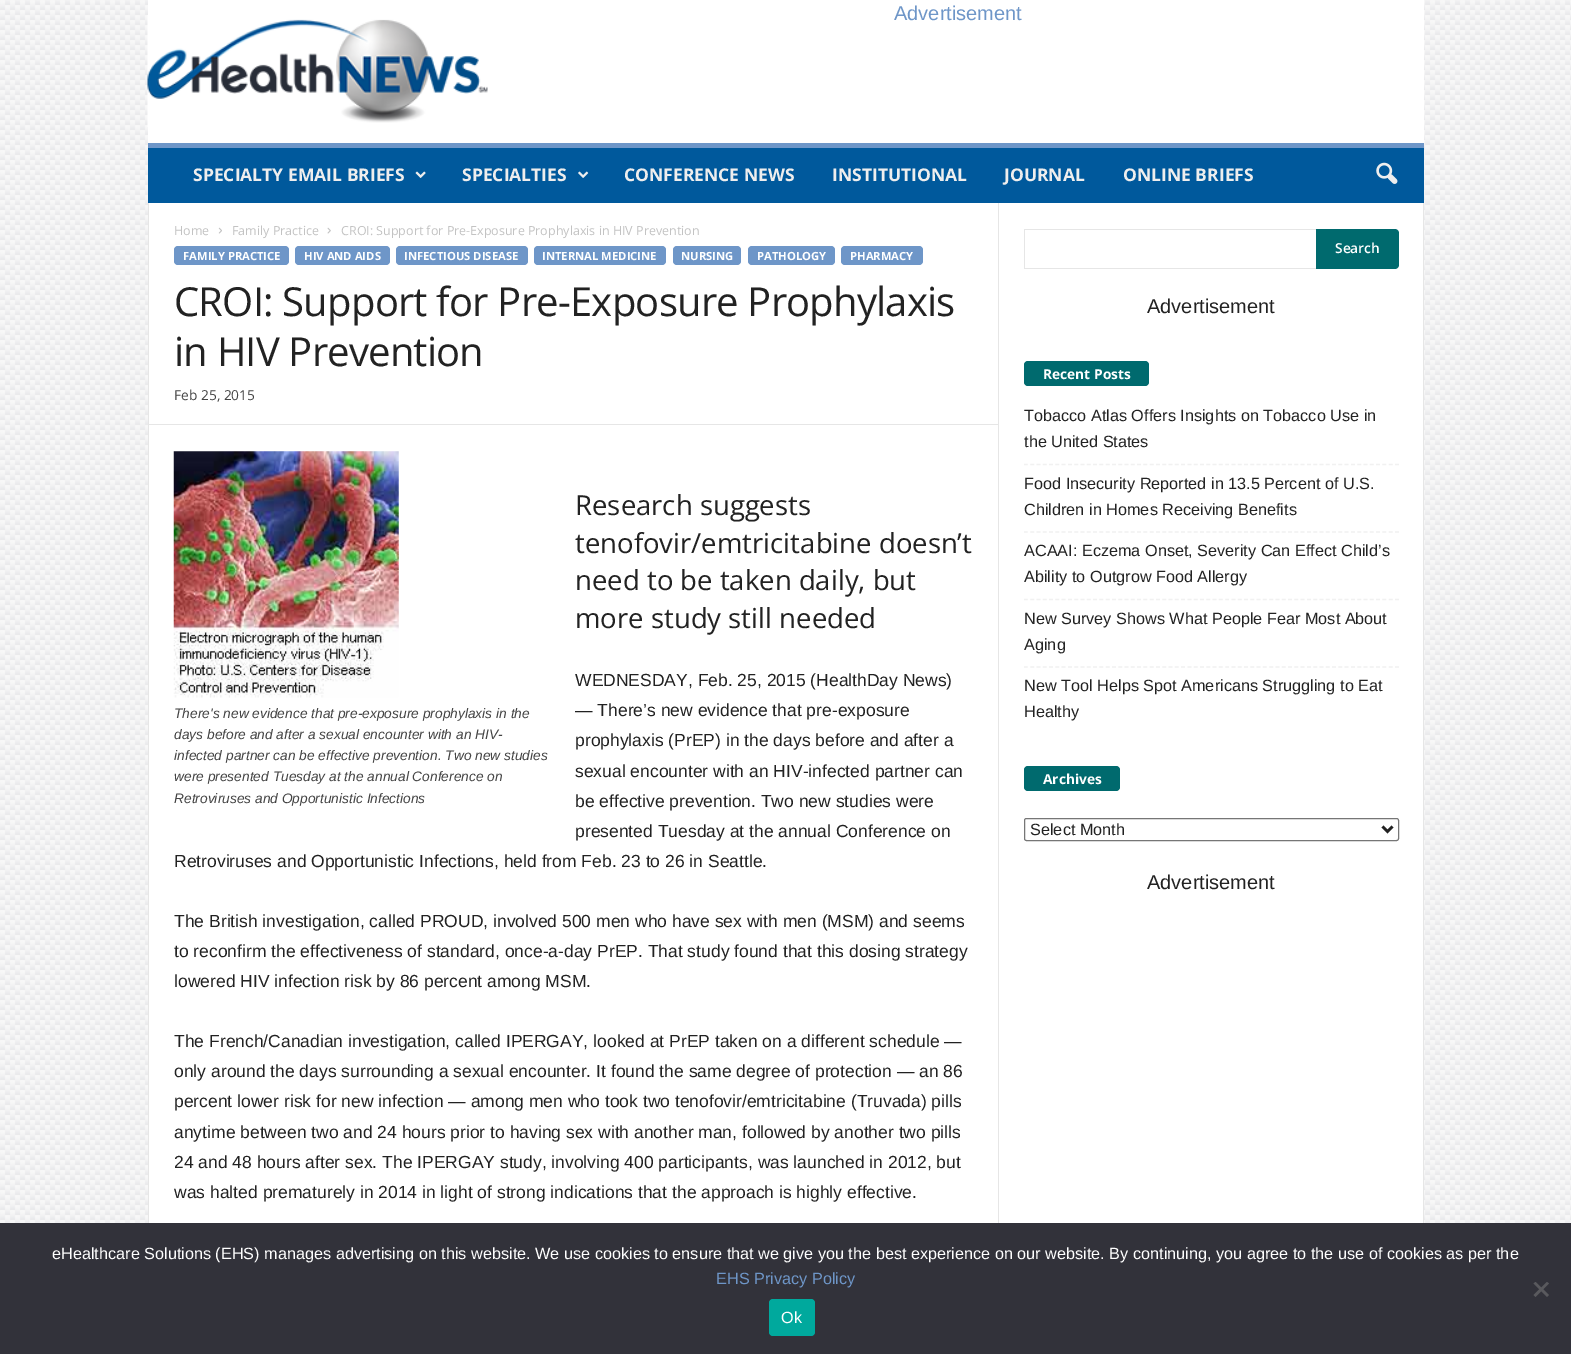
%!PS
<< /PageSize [1571 1354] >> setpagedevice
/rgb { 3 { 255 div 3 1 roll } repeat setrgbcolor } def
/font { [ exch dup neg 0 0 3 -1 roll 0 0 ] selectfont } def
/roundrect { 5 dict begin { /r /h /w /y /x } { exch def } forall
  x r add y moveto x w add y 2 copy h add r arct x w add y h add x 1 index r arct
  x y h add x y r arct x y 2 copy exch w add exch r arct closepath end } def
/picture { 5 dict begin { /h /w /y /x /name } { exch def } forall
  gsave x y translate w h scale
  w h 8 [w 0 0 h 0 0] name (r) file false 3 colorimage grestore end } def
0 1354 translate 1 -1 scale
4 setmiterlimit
255 255 255 rgb
0 0 1571 1354 rectfill
(img/1.rgb) 0 0 1571 1223 picture
148 0 1276 143 rectfill
(img/2.rgb) 147 15 341 112 picture
0 89 156 rgb
148 148 1276 55 rectfill
110 150 200 rgb
148 143 1276 5 rectfill
(img/3.rgb) 415 171 11 7 picture
(img/4.rgb) 578 171 11 7 picture
(img/5.rgb) 1376 162 22 22 picture
255 255 255 rgb
149 203 1274 1020 rectfill
230 230 230 rgb
148 203 1 1020 rectfill
(img/6.rgb) 218 227 4 7 picture
(img/7.rgb) 327 227 4 7 picture
110 150 200 rgb
174 246 115 19 4 roundrect fill
295 246 95 19 4 roundrect fill
396 246 132 19 4 roundrect fill
534 246 132 19 4 roundrect fill
673 246 68 19 4 roundrect fill
748 246 87 19 4 roundrect fill
841 246 82 19 4 roundrect fill
230 230 230 rgb
149 424 849 1 rectfill
(img/8.rgb) 173 451 226 247 picture
[
  [998 203 1 1020 230 230 230]
  [1024 229 292 1 230 230 230]
  [1024 268 292 1 230 230 230]
  [1024 229 1 40 230 230 230]
] { aload pop rgb rectfill } forall
0 106 110 rgb
1316 229 moveto 1395 229 lineto 1397 229 1399 231 1399 233 curveto 1399 265 lineto 1399 267 1397 269 1395 269 curveto 1316 269 lineto closepath fill
1024 361 125 25 4 roundrect fill
241 241 241 rgb
1.2 setlinewidth
[3.75 2.54] 0 setdash
1024 464.5 moveto 1399 464.5 lineto stroke
1024 532 moveto 1399 532 lineto stroke
1024 599.5 moveto 1399 599.5 lineto stroke
1024 667 moveto 1399 667 lineto stroke
0 106 110 rgb
1024 766 96 25 4 roundrect fill
118 118 118 rgb
1 setlinewidth
[] 0 setdash
1024.5 818.5 374 22 2 roundrect stroke
34 34 34 rgb
2.5 setlinewidth
1382.5 826.5 moveto 1387.5 831.5 lineto 1392.5 826.5 lineto stroke
230 230 230 rgb
1423 203 1 1020 rectfill
50 50 58 rgb
0 1223 1571 131 rectfill
89 89 93 rgb
1547 1282 moveto 1549 1283.5 lineto 1535.5 1297 lineto 1533.5 1295 lineto closepath fill
1533.5 1283.5 moveto 1535.5 1282 lineto 1549 1295 lineto 1547 1297 lineto closepath fill
0 169 157 rgb
769 1299 46 37 4 roundrect fill
/LiberationSans-Regular 20 font
110 150 200 rgb
894 20 moveto (Advertisement) show
/OpenSans-Bold 17.5 font
238 238 238 rgb
[
  [(SPECIALTY EMAIL BRIEFS) 193 181]
  [(SPECIALTIES) 462 181]
  [(CONFERENCE NEWS) 624 181]
  [(INSTITUTIONAL) 832 181]
  [(JOURNAL) 1004 181]
  [(ONLINE BRIEFS) 1123 181]
] { aload pop moveto show } forall
/OpenSans-Regular 12.5 font
195 195 195 rgb
[
  [(Home) 174 235]
  [(Family Practice) 232 235]
  [(CROI: Support for Pre-Exposure Prophylaxis in HIV Prevention) 341 235]
] { aload pop moveto show } forall
/OpenSans-Bold 11.25 font
255 255 255 rgb
[
  [(FAMILY PRACTICE) 183 260]
  [(HIV AND AIDS) 304 260]
  [(INFECTIOUS DISEASE) 404 260]
  [(INTERNAL MEDICINE) 542 260]
  [(NURSING) 681 260]
  [(PATHOLOGY) 757 260]
  [(PHARMACY) 850 260]
] { aload pop moveto show } forall
/OpenSans-Regular 40 font
34 34 34 rgb
174 316 moveto -0.8 0 (CROI: Support for Pre-Exposure Prophylaxis) ashow
174 366 moveto -0.8 0 (in HIV Prevention) ashow
/OpenSans-Regular 13.75 font
68 68 68 rgb
174 400 moveto (Feb 25, 2015) show
/OpenSans-Regular 27.5 font
34 34 34 rgb
[
  [(Research suggests) 575 515]
  [(tenofovir/emtricitabine doesn’t) 575 553]
  [(need to be taken daily, but) 575 590]
  [(more study still needed) 575 628]
] { aload pop moveto show } forall
/LiberationSans-Regular 17.5 font
[
  [(WEDNESDAY, Feb. 25, 2015 \(HealthDay News\)) 575 686]
  [(— There’s new evidence that pre-exposure) 575 716]
  [(prophylaxis \(PrEP\) in the days before and after a) 575 746]
  [(sexual encounter with an HIV-infected partner can) 575 777]
  [(be effective prevention. Two new studies were) 575 807]
  [(presented Tuesday at the annual Conference on) 575 837]
  [(Retroviruses and Opportunistic Infections, held from Feb. 23 to 26 in Seattle.) 174 867]
] { aload pop moveto show } forall
/LiberationSans-Italic 13.75 font
68 68 68 rgb
[
  [(There's new evidence that pre-exposure prophylaxis in the) 174 718]
  [(days before and after a sexual encounter with an HIV-) 174 739]
  [(infected partner can be effective prevention. Two new studies) 174 760]
  [(were presented Tuesday at the annual Conference on) 174 781]
  [(Retroviruses and Opportunistic Infections) 174 803]
] { aload pop moveto show } forall
/LiberationSans-Regular 17.5 font
34 34 34 rgb
[
  [(The British investigation, called PROUD, involved 500 men who have sex with men \(MSM\) and seems) 174 927]
  [(to reconfirm the effectiveness of standard, once-a-day PrEP. That study found that this dosing strategy) 174 957]
  [(lowered HIV infection risk by 86 percent among MSM.) 174 987]
  [(The French/Canadian investigation, called IPERGAY, looked at PrEP taken on a different schedule —) 174 1047]
  [(only around the days surrounding a sexual encounter. It found the same degree of protection — an 86) 174 1077]
  [(percent lower risk for new infection — among men who took two tenofovir/emtricitabine \(Truvada\) pills) 174 1107]
  [(anytime between two and 24 hours prior to having sex with another man, followed by another two pills) 174 1138]
  [(24 and 48 hours after sex. The IPERGAY study, involving 400 participants, was launched in 2012, but) 174 1168]
  [(was halted prematurely in 2014 in light of strong indications that the approach is highly effective.) 174 1198]
] { aload pop moveto show } forall
/OpenSans-SemiBold 13.75 font
255 255 255 rgb
1335 253 moveto (Search) show
/LiberationSans-Regular 20 font
34 34 34 rgb
1147 313 moveto (Advertisement) show
/OpenSans-Bold 13.75 font
255 255 255 rgb
1043 379 moveto (Recent Posts) show
/LiberationSans-Regular 16.25 font
34 34 34 rgb
[
  [(Tobacco Atlas Offers Insights on Tobacco Use in) 1024 421]
  [(the United States) 1024 447]
  [(Food Insecurity Reported in 13.5 Percent of U.S.) 1024 489]
  [(Children in Homes Receiving Benefits) 1024 515]
  [(ACAAI: Eczema Onset, Severity Can Effect Child’s) 1024 556]
  [(Ability to Outgrow Food Allergy) 1024 582]
  [(New Survey Shows What People Fear Most About) 1024 624]
  [(Aging) 1024 650]
  [(New Tool Helps Spot Americans Struggling to Eat) 1024 691]
  [(Healthy) 1024 717]
] { aload pop moveto show } forall
/OpenSans-Bold 13.75 font
255 255 255 rgb
1043 784 moveto (Archives) show
/LiberationSans-Regular 16.25 font
34 34 34 rgb
1030 835 moveto (Select Month) show
/LiberationSans-Regular 20 font
1147 889 moveto (Advertisement) show
/LiberationSans-Regular 16.25 font
255 255 255 rgb
52 1259 moveto (eHealthcare Solutions \(EHS\) manages advertising on this website. We use cookies to ensure that we give you the best experience on our website. By continuing, you agree to the use of cookies as per the) show
110 150 200 rgb
716 1284 moveto (EHS Privacy Policy) show
255 255 255 rgb
781 1323 moveto (Ok) show
showpage
